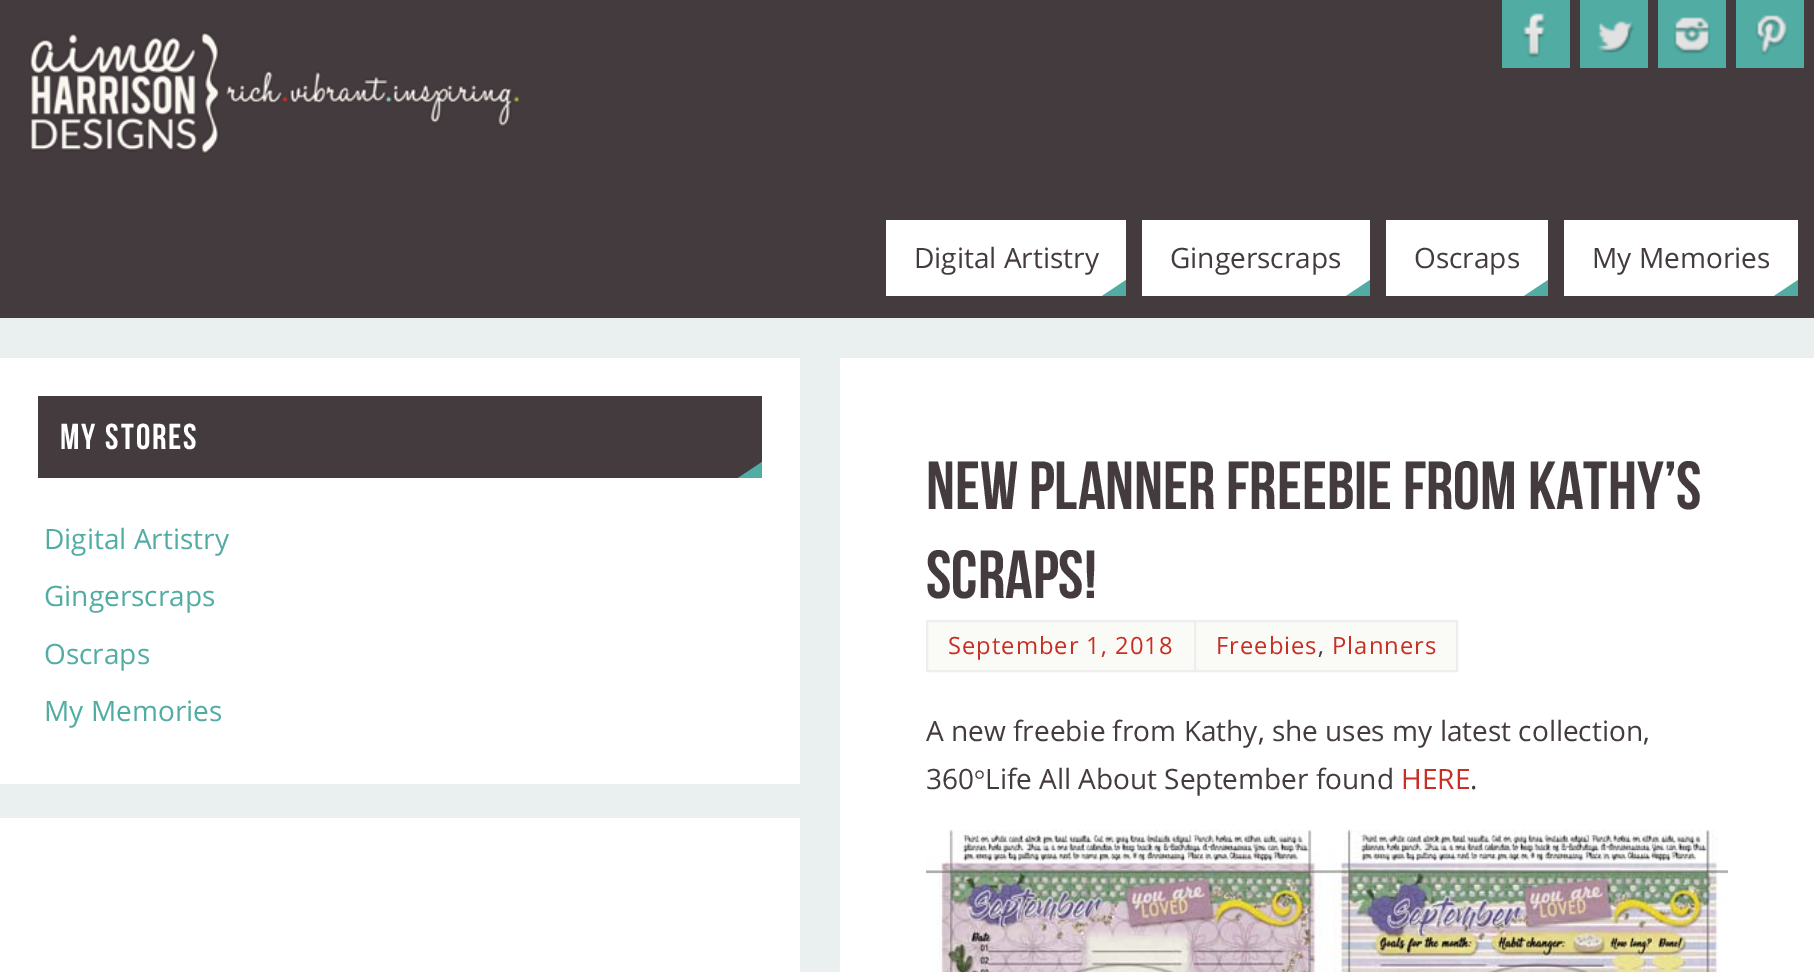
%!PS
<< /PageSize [1814 972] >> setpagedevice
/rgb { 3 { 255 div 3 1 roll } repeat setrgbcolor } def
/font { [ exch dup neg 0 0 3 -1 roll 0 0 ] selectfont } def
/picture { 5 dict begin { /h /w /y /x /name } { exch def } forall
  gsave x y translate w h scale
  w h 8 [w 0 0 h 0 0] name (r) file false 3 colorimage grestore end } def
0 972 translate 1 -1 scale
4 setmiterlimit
234 240 240 rgb
0 0 1814 972 rectfill
68 59 62 rgb
0 0 1814 318 rectfill
(img/1.rgb) 29 32 490 122 picture
81 173 164 rgb
1502 0 68 68 rectfill
(img/2.rgb) 1522 13 24 45 picture
1580 0 68 68 rectfill
(img/3.rgb) 1597 21 38 32 picture
1658 0 68 68 rectfill
(img/4.rgb) 1673 17 38 37 picture
1736 0 68 68 rectfill
(img/5.rgb) 1755 15 33 41 picture
255 255 255 rgb
886 220 240 76 rectfill
81 173 164 rgb
1126 296 moveto 1102 296 lineto 1126 280 lineto closepath fill
255 255 255 rgb
1142 220 228 76 rectfill
81 173 164 rgb
1370 296 moveto 1346 296 lineto 1370 280 lineto closepath fill
255 255 255 rgb
1386 220 162 76 rectfill
81 173 164 rgb
1548 296 moveto 1524 296 lineto 1548 280 lineto closepath fill
255 255 255 rgb
1564 220 234 76 rectfill
81 173 164 rgb
1798 296 moveto 1774 296 lineto 1798 280 lineto closepath fill
255 255 255 rgb
0 358 800 426 rectfill
68 59 62 rgb
38 396 724 82 rectfill
81 173 164 rgb
762 478 moveto 738 478 lineto 762 462 lineto closepath fill
255 255 255 rgb
0 818 800 154 rectfill
840 358 974 614 rectfill
250 250 247 rgb
927 621 moveto 1195 621 lineto 1195 671 lineto 927 671 lineto closepath gsave fill grestore
238 238 238 rgb
2 setlinewidth
stroke
250 250 247 rgb
1195 621 moveto 1457 621 lineto 1457 671 lineto 1195 671 lineto closepath gsave fill grestore
238 238 238 rgb
stroke
(img/6.rgb) 926 830 802 142 picture
/OpenSans-Regular 28 font
68 59 62 rgb
[
  [(Digital Artistry) 914 268]
  [(Gingerscraps) 1170 268]
  [(Oscraps) 1414 268]
  [(My Memories) 1592 268]
] { aload pop moveto show } forall
/BebasNeue-Regular 36 font
255 255 255 rgb
60 449 moveto 2 0 (My Stores) ashow
/OpenSans-Regular 28 font
81 173 164 rgb
[
  [(Digital Artistry) 44 549]
  [(Gingerscraps) 44 606]
  [(Oscraps) 44 664]
  [(My Memories) 44 721]
] { aload pop moveto show } forall
/BebasNeue-Regular 68 font
68 59 62 rgb
926 509 moveto (New Planner Freebie from Kathy’s) show
926 598 moveto (Scraps!) show
/OpenSans-Regular 23.75 font
199 47 36 rgb
948 654 moveto 1 0 (September 1, 2018) ashow
1216 654 moveto 1 0 (Freebies) ashow
68 59 62 rgb
1318 654 moveto 1 0 (,) ashow
199 47 36 rgb
1332 654 moveto 1 0 (Planners) ashow
/OpenSans-Regular 28 font
68 59 62 rgb
926 741 moveto (A new freebie from Kathy, she uses my latest collection,) show
926 789 moveto (360) show
/LiberationSerif-Regular 28 font
974 789 moveto (°) show
/OpenSans-Regular 28 font
985 789 moveto (Life All About September found) show
199 47 36 rgb
1401 789 moveto (HERE) show
68 59 62 rgb
1470 789 moveto (.) show
showpage
